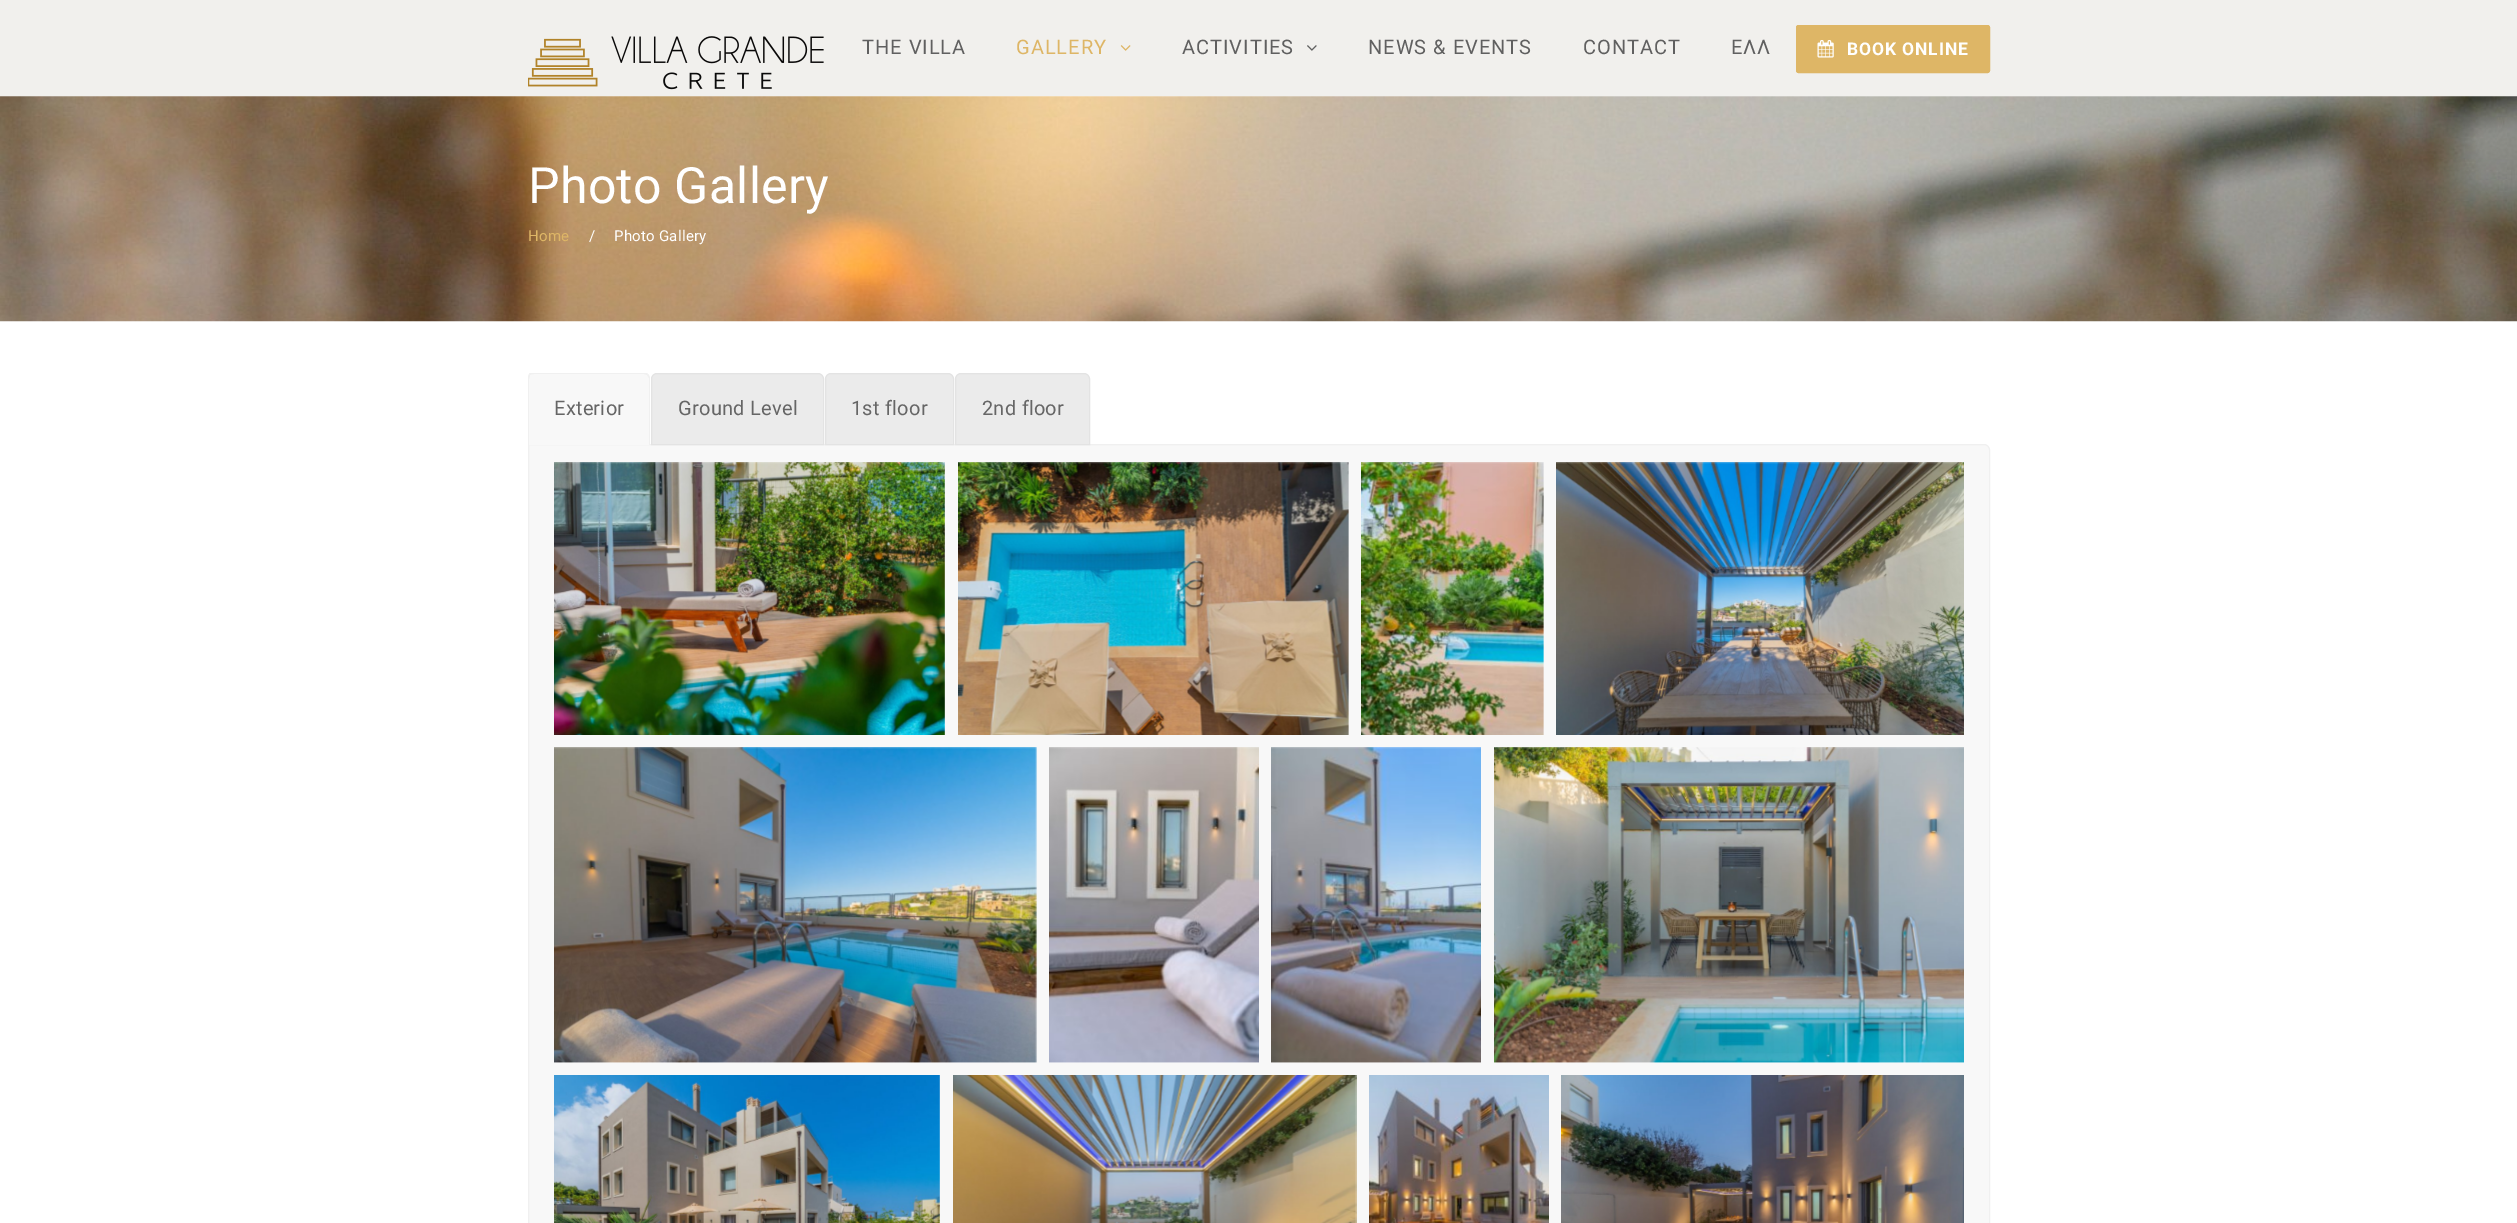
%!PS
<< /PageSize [2517 1223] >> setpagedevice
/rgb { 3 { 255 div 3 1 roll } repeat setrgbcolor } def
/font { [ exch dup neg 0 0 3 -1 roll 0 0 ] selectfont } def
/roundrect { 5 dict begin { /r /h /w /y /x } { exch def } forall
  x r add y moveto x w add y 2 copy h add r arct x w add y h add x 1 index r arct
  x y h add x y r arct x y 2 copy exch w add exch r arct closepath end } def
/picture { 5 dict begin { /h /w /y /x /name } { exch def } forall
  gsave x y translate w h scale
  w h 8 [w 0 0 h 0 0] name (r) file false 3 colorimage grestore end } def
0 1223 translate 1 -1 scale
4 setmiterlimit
255 255 255 rgb
0 0 2517 1223 rectfill
241 240 237 rgb
0 0 2517 96 rectfill
(img/1.rgb) 528 36 296 54 picture
(img/2.rgb) 1120 45 11 6 picture
(img/3.rgb) 1307 45 10 6 picture
222 182 102 rgb
1796.5 25.5 193 47 2 roundrect gsave fill grestore
stroke
(img/4.rgb) 1817 40 17 18 picture
(img/5.rgb) 0 96 2517 226 picture
248 248 248 rgb
528.5 444.5 moveto 1984 444.5 lineto 1987 444.5 1989.5 447 1989.5 450 curveto 1989.5 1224 lineto 1989.5 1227 1987 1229.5 1984 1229.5 curveto 534 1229.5 lineto 531 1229.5 528.5 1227 528.5 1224 curveto closepath gsave fill grestore
240 240 240 rgb
stroke
248 248 248 rgb
534 373 moveto 644 373 lineto 647.5 373 650 375.5 650 379 curveto 650 445 lineto 528 445 lineto 528 379 lineto 528 375.5 530.5 373 534 373 curveto closepath fill
gsave
528 373 1456 72 rectclip
240 240 240 rgb
534 374 moveto 532 374 531 374 530 375 curveto 529 374 lineto 533 368 550 372 551 372 curveto 646 372 lineto 648 374 lineto 647 375 lineto 644 374 lineto closepath fill
grestore
240 240 240 rgb
650 445 moveto 650 379 lineto 650 377 649 375 648 374 curveto 647 375 lineto 649 378 lineto 649 444 lineto closepath fill
528 444 moveto 528 379 lineto 528 377 528 376 529 374 curveto 530 375 lineto 530 376 529 378 529 379 curveto 529 444 lineto closepath fill
528 444 1 1 rectfill
649 444 1 1 rectfill
235 235 235 rgb
657 373.5 moveto 818 373.5 lineto 821 373.5 823.5 376 823.5 379 curveto 823.5 444.5 lineto 651.5 444.5 lineto 651.5 379 lineto 651.5 376 654 373.5 657 373.5 curveto closepath gsave fill grestore
227 227 227 rgb
stroke
235 235 235 rgb
831 373.5 moveto 948 373.5 lineto 951 373.5 953.5 376 953.5 379 curveto 953.5 444.5 lineto 825.5 444.5 lineto 825.5 379 lineto 825.5 376 828 373.5 831 373.5 curveto closepath gsave fill grestore
227 227 227 rgb
stroke
235 235 235 rgb
961 373.5 moveto 1084 373.5 lineto 1087 373.5 1089.5 376 1089.5 379 curveto 1089.5 444.5 lineto 955.5 444.5 lineto 955.5 379 lineto 955.5 376 958 373.5 961 373.5 curveto closepath gsave fill grestore
227 227 227 rgb
stroke
(img/6.rgb) 554 462 391 273 picture
(img/7.rgb) 958 462 391 273 picture
(img/8.rgb) 1361 462 183 273 picture
(img/9.rgb) 1556 462 408 273 picture
(img/10.rgb) 554 747 483 316 picture
(img/11.rgb) 1049 747 210 316 picture
(img/12.rgb) 1271 747 210 316 picture
(img/13.rgb) 1494 747 470 316 picture
(img/14.rgb) 554 1075 386 148 picture
(img/15.rgb) 953 1075 404 148 picture
(img/16.rgb) 1369 1075 180 148 picture
(img/17.rgb) 1561 1075 403 148 picture
/Roboto-Regular 20 font
96 96 96 rgb
862 54 moveto 1 0 (THE VILLA) ashow
222 182 102 rgb
1016 54 moveto 1 0 (GALLERY) ashow
96 96 96 rgb
1182 54 moveto 1 0 (ACTIVITIES) ashow
1368 54 moveto 1 0 (NEWS & EVENTS) ashow
1583 54 moveto 1 0 (CONTACT) ashow
1731 54 moveto 1 0 (ΕΛΛ) ashow
/Roboto-Bold 17.5 font
255 255 255 rgb
1847 55 moveto 0.9 0 (BOOK ONLINE) ashow
/Roboto-Regular 50 font
528 203 moveto 0.25 0 (Photo Gallery) ashow
/Roboto-Regular 15 font
222 182 102 rgb
528 241 moveto 0.25 0 (Home) ashow
255 255 255 rgb
589 241 moveto 0.25 0 (/) ashow
614 241 moveto 0.25 0 (Photo Gallery) ashow
/Roboto-Regular 20 font
102 102 102 rgb
554 415 moveto 0.25 0 (Exterior) ashow
678 415 moveto 0.25 0 (Ground Level) ashow
851 415 moveto 0.25 0 (1st floor) ashow
982 415 moveto 0.25 0 (2nd floor) ashow
showpage
